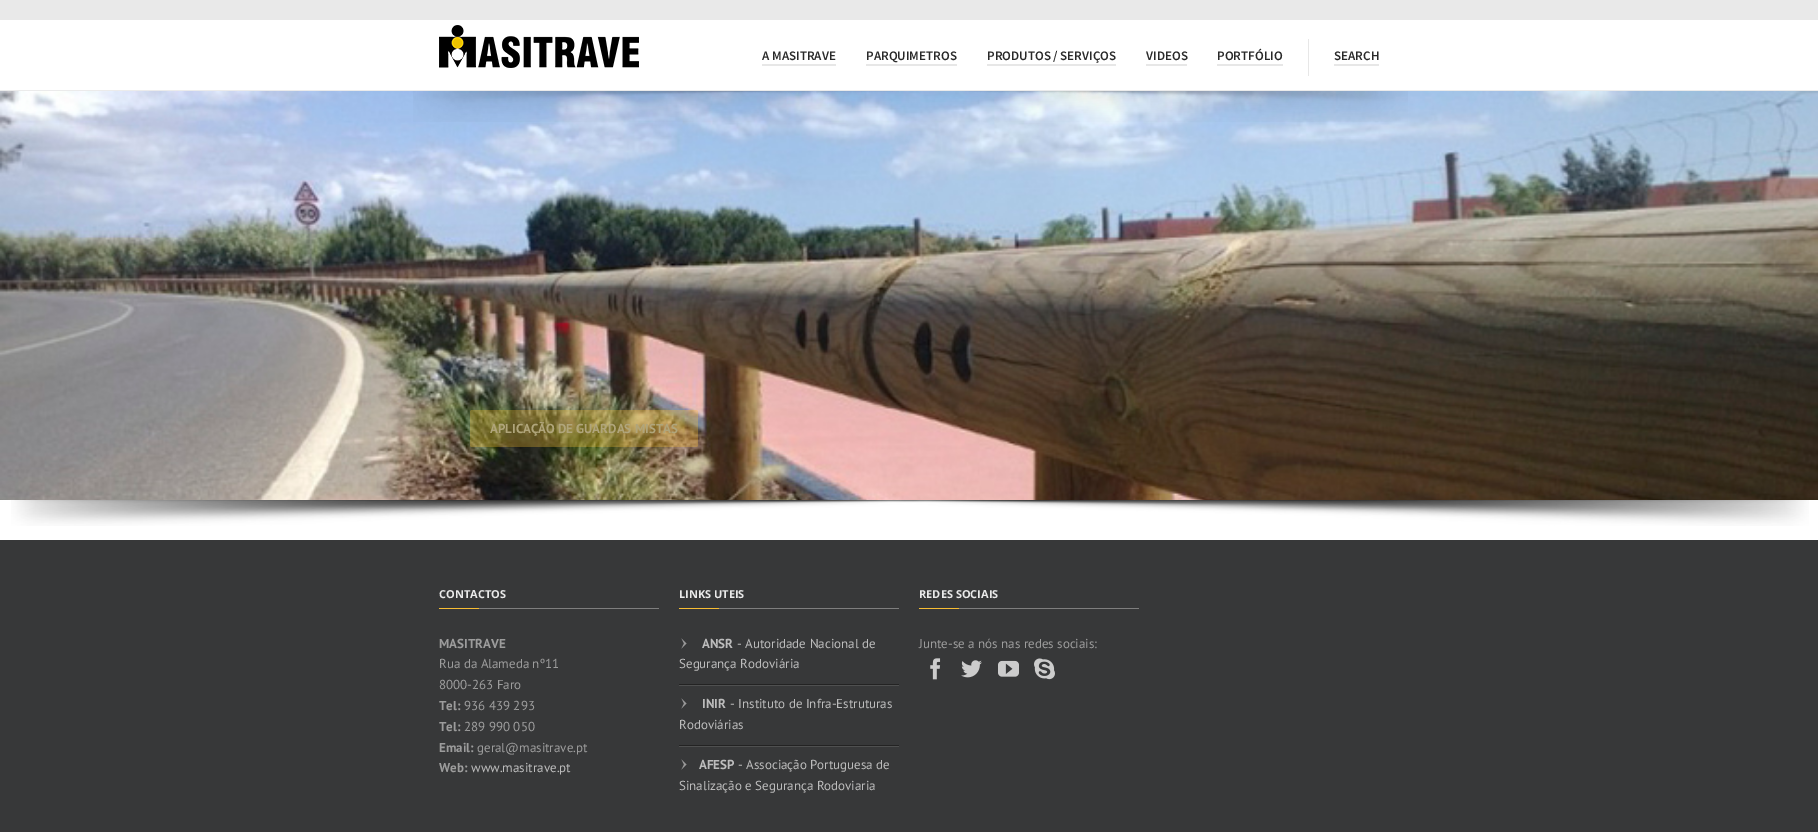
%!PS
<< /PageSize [1818 832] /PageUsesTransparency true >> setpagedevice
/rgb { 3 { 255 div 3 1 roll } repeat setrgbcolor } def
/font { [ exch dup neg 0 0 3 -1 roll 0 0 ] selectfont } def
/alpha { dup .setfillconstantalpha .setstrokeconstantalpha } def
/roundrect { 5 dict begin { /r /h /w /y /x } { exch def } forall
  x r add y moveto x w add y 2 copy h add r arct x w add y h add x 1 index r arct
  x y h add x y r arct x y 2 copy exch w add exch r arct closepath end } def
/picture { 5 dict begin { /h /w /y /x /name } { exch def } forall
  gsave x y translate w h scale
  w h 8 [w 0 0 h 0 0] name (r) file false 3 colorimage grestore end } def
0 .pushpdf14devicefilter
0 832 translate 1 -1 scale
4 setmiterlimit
255 255 255 rgb
0 0 1818 832 rectfill
233 233 233 rgb
0 0 1818 20 rectfill
235 235 235 rgb
0 90 1818 1 rectfill
(img/1.rgb) 439 25 200 43 picture
[
  [762 64 74 2 231 231 231]
  [866 64 91 2 231 231 231]
  [987 64 129 2 231 231 231]
  [1146 64 41 2 231 231 231]
  [1217 64 66 2 231 231 231]
  [1308 39 1 37 231 231 231]
  [1334 64 45 2 231 231 231]
] { aload pop rgb rectfill } forall
(img/3.rgb) 0 91 1818 409 picture
(img/2.rgb) 413 91 995 31 picture
0.32 alpha
247 189 52 rgb
470 410 228 37 2 roundrect fill
1 alpha
(img/4.rgb) 11 500 1798 26 picture
[
  [0 540 1818 292 55 56 57]
  [479 608 180 1 126 126 126]
  [439 608 40 1 247 189 52]
  [719 608 180 1 126 126 126]
  [679 608 40 1 247 189 52]
  [679 685 220 1 79 80 80]
  [679 684 220 1 35 35 35]
] { aload pop rgb rectfill } forall
153 153 153 rgb
681.5 648.5 moveto 684 643.5 lineto 681.5 638.5 lineto 686.5 643.5 lineto closepath fill
79 80 80 rgb
679 746 220 1 rectfill
35 35 35 rgb
679 745 220 1 rectfill
153 153 153 rgb
681.5 708.5 moveto 684 703.5 lineto 681.5 698.5 lineto 686.5 703.5 lineto closepath fill
681.5 769.5 moveto 684 764.5 lineto 681.5 759.5 lineto 686.5 764.5 lineto closepath fill
126 126 126 rgb
959 608 180 1 rectfill
247 189 52 rgb
919 608 40 1 rectfill
(img/5.rgb) 930 658 11 22 picture
(img/6.rgb) 961 660 21 18 picture
(img/7.rgb) 998 660 21 17 picture
(img/8.rgb) 1034 658 21 22 picture
/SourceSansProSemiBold-SemiBold 13 font
41 41 41 rgb
[
  [(A MASITRAVE) 762 60]
  [(PARQUIMETROS) 866 60]
  [(PRODUTOS / SERVIÇOS) 987 60]
  [(VIDEOS) 1146 60]
  [(PORTFÓLIO) 1217 60]
  [(SEARCH) 1334 60]
] { aload pop moveto show } forall
/PTSans-Bold 13 font
176 165 123 rgb
490 433 moveto (APLICAÇÃO DE GUARDAS MISTAS) show
/OpenSans-Bold 11 font
234 234 234 rgb
439 598 moveto (CONTACTOS) show
/PTSans-Bold 13 font
156 156 156 rgb
439 648 moveto (MASITRAVE) show
/PTSans-Regular 13 font
439 668 moveto (Rua da Alameda nº11) show
439 689 moveto (8000-263 Faro) show
/PTSans-Bold 13 font
439 710 moveto (Tel:) show
/PTSans-Regular 13 font
464 710 moveto (936 439 293) show
/PTSans-Bold 13 font
439 731 moveto (Tel:) show
/PTSans-Regular 13 font
464 731 moveto (289 990 050) show
/PTSans-Bold 13 font
439 752 moveto (Email:) show
/PTSans-Regular 13 font
477 752 moveto (geral@masitrave.pt) show
/PTSans-Bold 13 font
439 772 moveto (Web:) show
/PTSans-Regular 13 font
188 188 188 rgb
471 772 moveto (www.masitrave.pt) show
/OpenSans-Bold 11 font
234 234 234 rgb
679 598 moveto (LINKS UTEIS) show
/PTSans-Bold 13 font
188 188 188 rgb
702 648 moveto (ANSR) show
/PTSans-Regular 13 font
737 648 moveto (- Autoridade Nacional de) show
679 668 moveto (Segurança Rodoviária) show
/PTSans-Bold 13 font
702 708 moveto (INIR) show
/PTSans-Regular 13 font
730 708 moveto (- Instituto de Infra-Estruturas) show
679 729 moveto (Rodoviárias) show
/PTSans-Bold 13 font
699 769 moveto (AFESP) show
/PTSans-Regular 13 font
738 769 moveto (- Associação Portuguesa de) show
679 790 moveto (Sinalização e Segurança Rodoviaria) show
/OpenSans-Bold 11 font
234 234 234 rgb
919 598 moveto (REDES SOCIAIS) show
/PTSans-Regular 13 font
156 156 156 rgb
919 648 moveto (Junte-se a nós nas redes sociais:) show
.poppdf14devicefilter showpage
